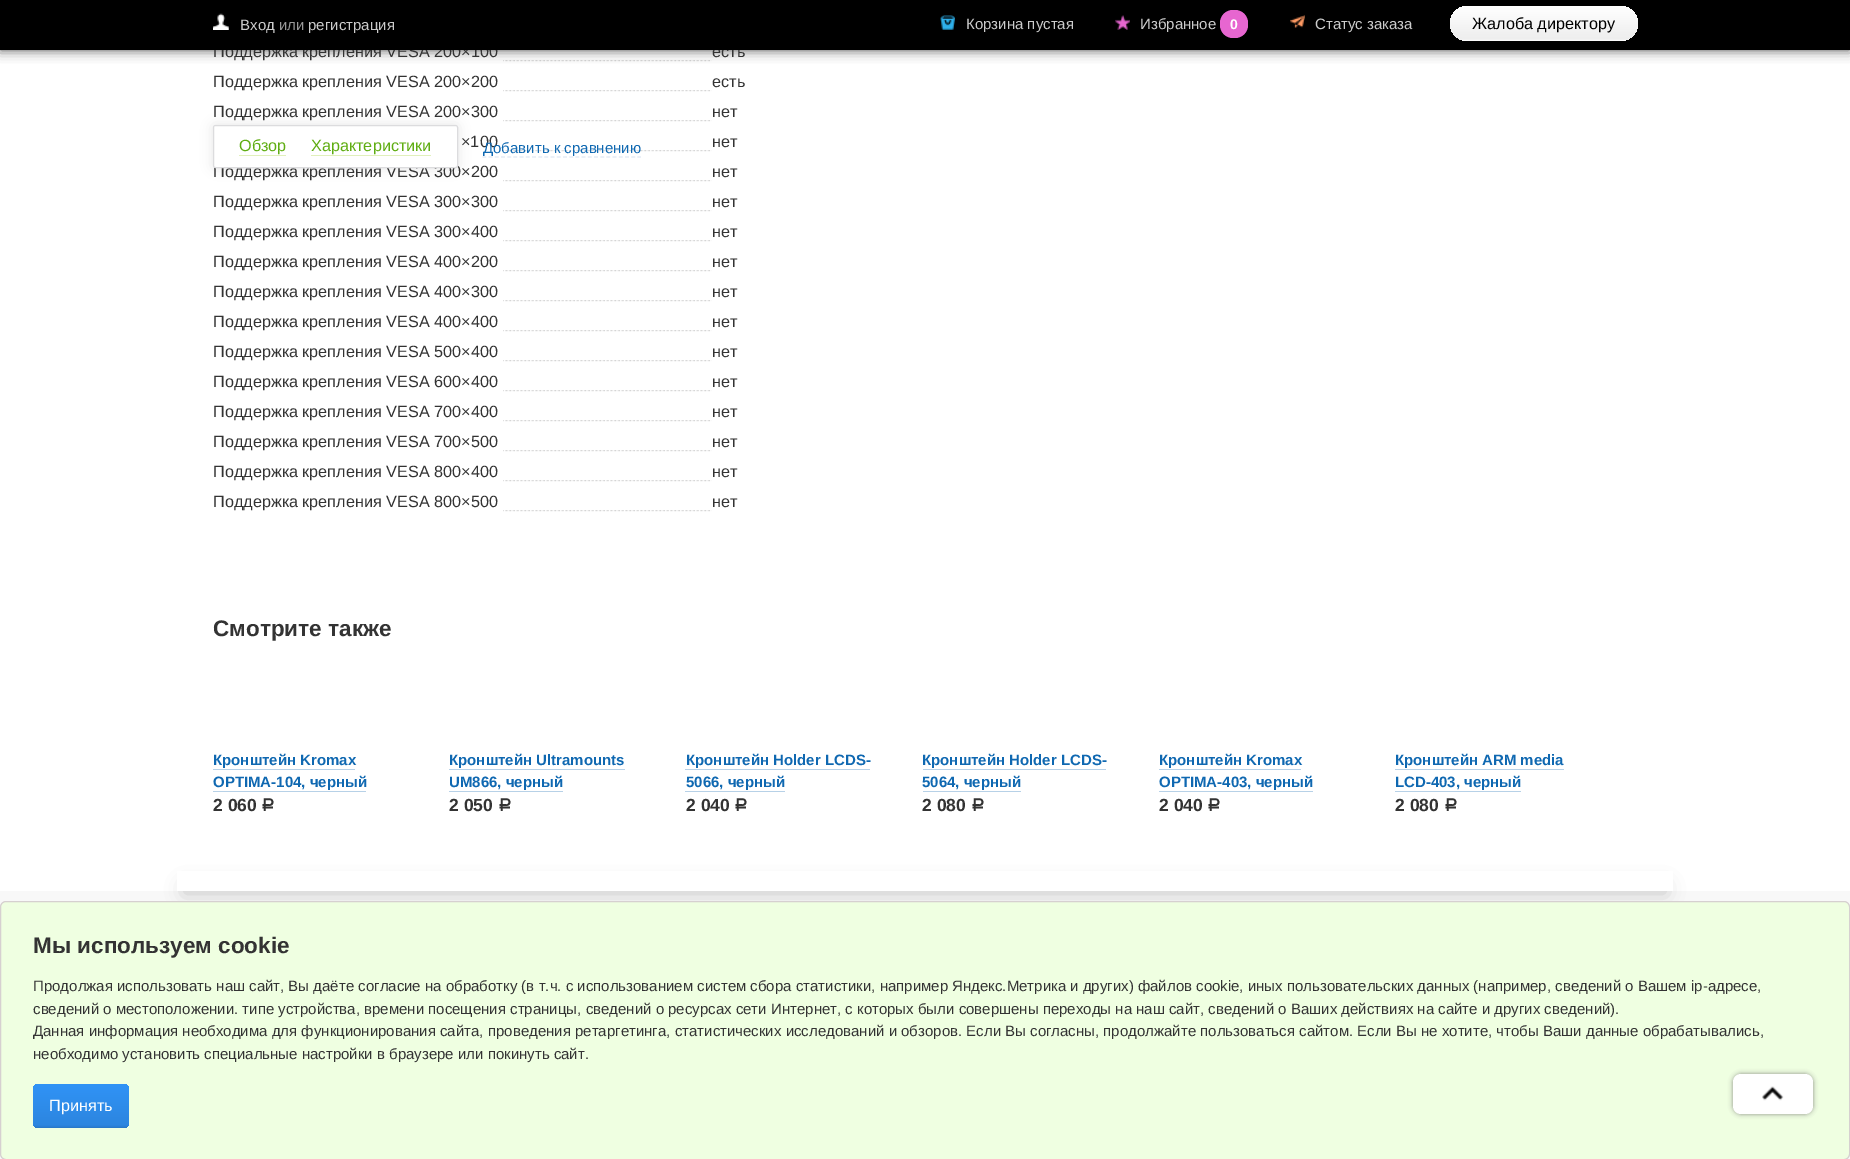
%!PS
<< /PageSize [1850 1159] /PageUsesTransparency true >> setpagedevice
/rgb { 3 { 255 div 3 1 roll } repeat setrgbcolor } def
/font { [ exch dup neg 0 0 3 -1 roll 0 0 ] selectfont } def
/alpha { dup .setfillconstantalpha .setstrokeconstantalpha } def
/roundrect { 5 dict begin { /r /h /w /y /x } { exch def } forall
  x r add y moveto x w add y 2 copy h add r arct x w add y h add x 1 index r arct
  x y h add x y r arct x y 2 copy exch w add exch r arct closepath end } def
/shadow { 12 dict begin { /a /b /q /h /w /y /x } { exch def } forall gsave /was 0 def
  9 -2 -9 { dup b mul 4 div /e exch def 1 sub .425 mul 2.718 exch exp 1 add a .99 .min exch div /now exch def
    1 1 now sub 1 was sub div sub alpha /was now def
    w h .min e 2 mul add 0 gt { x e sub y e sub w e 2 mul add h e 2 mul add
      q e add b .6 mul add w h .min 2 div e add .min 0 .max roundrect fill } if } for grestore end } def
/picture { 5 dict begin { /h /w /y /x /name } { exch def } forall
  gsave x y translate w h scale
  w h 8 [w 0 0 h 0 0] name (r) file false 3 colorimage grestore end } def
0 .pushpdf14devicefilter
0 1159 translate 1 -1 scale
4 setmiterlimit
255 255 255 rgb
0 0 1850 1159 rectfill
(img/5.rgb) 503 60 209 2 picture
0 0 0 rgb
0 0 1850 50 0 6 0.7 shadow
(img/5.rgb) 503 90 209 2 picture
(img/5.rgb) 503 120 209 2 picture
(img/5.rgb) 503 150 209 2 picture
(img/5.rgb) 503 180 209 2 picture
(img/5.rgb) 503 210 209 2 picture
(img/5.rgb) 503 240 209 2 picture
(img/5.rgb) 503 270 209 2 picture
(img/5.rgb) 503 300 209 2 picture
(img/5.rgb) 503 330 209 2 picture
(img/5.rgb) 503 360 209 2 picture
(img/5.rgb) 503 390 209 2 picture
(img/5.rgb) 503 420 209 2 picture
(img/5.rgb) 503 450 209 2 picture
(img/5.rgb) 503 480 209 2 picture
(img/5.rgb) 503 510 209 2 picture
213 125 245 43 2.5 6 0.1 shadow
228 235 244 rgb
1.2 setlinewidth
[3.75 2.45] 0 setdash
482.5 157 moveto 641 157 lineto stroke
[
  [213 769 142 1 183 209 231]
  [213 791 153 1 183 209 231]
  [449 769 176 1 183 209 231]
  [449 791 114 1 183 209 231]
  [685 769 185 1 183 209 231]
  [685 791 100 1 183 209 231]
  [923 769 183 1 183 209 231]
  [923 791 98 1 183 209 231]
  [1159 769 142 1 183 209 231]
  [1159 791 154 1 183 209 231]
  [1395 769 169 1 183 209 231]
  [1395 791 126 1 183 209 231]
  [0 891 1850 268 248 248 248]
] { aload pop rgb rectfill } forall
0 0 0 rgb
185 886 1480 7 3.5 9.5 0.2 shadow
222 222 222 rgb
925 886.5 moveto 1333.5 886.5 1665 888 1665 889.5 curveto 1665 891 1333.5 892.5 925 892.5 curveto 516.5 892.5 185 891 185 889.5 curveto 185 888 516.5 886.5 925 886.5 curveto closepath fill
255 255 255 rgb
177 871 1496 20 rectfill
239 255 225 rgb
0.5 901.5 1849 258 5.5 roundrect gsave fill grestore
214 208 208 rgb
1 setlinewidth
[] 0 setdash
stroke
gsave 33 1084 96 44 5 roundrect clip newpath
<< /ShadingType 2 /ColorSpace /DeviceRGB /Coords [81 1084 81 1128] /Extend [true true] /Function << /FunctionType 3 /Domain [0 1] /Functions [<< /FunctionType 2 /Domain [0 1] /C0 [0.188 0.576 0.965] /C1 [0.173 0.525 0.878] /N 1 >> << /FunctionType 2 /Domain [0 1] /C0 [0.173 0.525 0.878] /C1 [0.157 0.475 0.792] /N 1 >>] /Bounds [0.93] /Encode [0 1 0 1] >> >> shfill grestore
99 99 99 rgb
1733 1074 80 40 8 2.5 0.7 shadow
255 255 255 rgb
1733 1074 80 40 8 roundrect fill
(img/6.rgb) 1762 1086 22 15 picture
/LiberationSans-Regular 16.25 font
51 51 51 rgb
213 57 moveto (Поддержка крепления VESA 200×100) show
712 57 moveto (есть) show
0 0 0 rgb
0 0 1850 50 rectfill
/LiberationSans-Regular 15 font
204 204 204 rgb
308 30 moveto (регистрация) show
153 153 153 rgb
279 30 moveto (или) show
204 204 204 rgb
240 30 moveto (Вход) show
(img/1.rgb) 213 13 16 17 picture
1315 29 moveto (Статус заказа) show
(img/4.rgb) 1290 15 15 13 picture
231 102 208 rgb
1220 10 28 28 13 roundrect fill
/LiberationSans-Bold 14 font
255 255 255 rgb
1230 29 moveto (0) show
/LiberationSans-Regular 15 font
204 204 204 rgb
1140 29 moveto (Избранное) show
(img/3.rgb) 1115 15 15 15 picture
966 29 moveto (Корзина пустая) show
(img/2.rgb) 940 15 15 15 picture
gsave 1450 6 188 35 17.5 roundrect clip newpath
<< /ShadingType 2 /ColorSpace /DeviceRGB /Coords [1544 6.2 1544 41] /Extend [true true] /Function << /FunctionType 3 /Domain [0 1] /Functions [<< /FunctionType 2 /Domain [0 1] /C0 [1 1 1] /C1 [0.933 0.933 0.933] /N 1 >> << /FunctionType 2 /Domain [0 1] /C0 [0.933 0.933 0.933] /C1 [0.98 0.98 0.98] /N 1 >>] /Bounds [0.94] /Encode [0 1 0 1] >> >> shfill grestore
/LiberationSans-Regular 16.25 font
0 0 0 rgb
1472 29 moveto (Жалоба директору) show
51 51 51 rgb
[
  [(Поддержка крепления VESA 200×200) 213 87]
  [(есть) 712 87]
  [(Поддержка крепления VESA 200×300) 213 117]
  [(нет) 712 117]
  [(×100) 461 147]
  [(нет) 712 147]
  [(Поддержка крепления VESA 300×200) 213 177]
  [(нет) 712 177]
  [(Поддержка крепления VESA 300×300) 213 207]
  [(нет) 712 207]
  [(Поддержка крепления VESA 300×400) 213 237]
  [(нет) 712 237]
  [(Поддержка крепления VESA 400×200) 213 267]
  [(нет) 712 267]
  [(Поддержка крепления VESA 400×300) 213 297]
  [(нет) 712 297]
  [(Поддержка крепления VESA 400×400) 213 327]
  [(нет) 712 327]
  [(Поддержка крепления VESA 500×400) 213 357]
  [(нет) 712 357]
  [(Поддержка крепления VESA 600×400) 213 387]
  [(нет) 712 387]
  [(Поддержка крепления VESA 700×400) 213 417]
  [(нет) 712 417]
  [(Поддержка крепления VESA 700×500) 213 447]
  [(нет) 712 447]
  [(Поддержка крепления VESA 800×400) 213 477]
  [(нет) 712 477]
  [(Поддержка крепления VESA 800×500) 213 507]
  [(нет) 712 507]
] { aload pop moveto show } forall
255 255 255 rgb
213.5 125.5 244 42 2 roundrect gsave fill grestore
220 220 222 rgb
stroke
95 173 18 rgb
239 151 moveto (Обзор) show
225 240 188 rgb
239 155 47 1 rectfill
95 173 18 rgb
311 151 moveto (Характеристики) show
225 240 188 rgb
311 155 120 1 rectfill
/LiberationSans-Regular 15 font
15 104 177 rgb
483 153 moveto (Добавить к сравнению) show
/LiberationSans-Bold 22.5 font
51 51 51 rgb
213 636 moveto (Смотрите также) show
/LiberationSans-Bold 15 font
15 104 177 rgb
213 765 moveto (Кронштейн Kromax) show
213 787 moveto (OPTIMA-104, черный) show
/LiberationSans-Bold 17.5 font
51 51 51 rgb
213 811 moveto (2 060) show
/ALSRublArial-Bold 17.5 font
261 811 moveto (Р) show
/LiberationSans-Bold 15 font
15 104 177 rgb
449 765 moveto (Кронштейн Ultramounts) show
449 787 moveto (UM866, черный) show
/LiberationSans-Bold 17.5 font
51 51 51 rgb
449 811 moveto (2 050) show
/ALSRublArial-Bold 17.5 font
498 811 moveto (Р) show
/LiberationSans-Bold 15 font
15 104 177 rgb
686 765 moveto (Кронштейн Holder LCDS-) show
686 787 moveto (5066, черный) show
/LiberationSans-Bold 17.5 font
51 51 51 rgb
686 811 moveto (2 040) show
/ALSRublArial-Bold 17.5 font
734 811 moveto (Р) show
/LiberationSans-Bold 15 font
15 104 177 rgb
922 765 moveto (Кронштейн Holder LCDS-) show
922 787 moveto (5064, черный) show
/LiberationSans-Bold 17.5 font
51 51 51 rgb
922 811 moveto (2 080) show
/ALSRublArial-Bold 17.5 font
971 811 moveto (Р) show
/LiberationSans-Bold 15 font
15 104 177 rgb
1159 765 moveto (Кронштейн Kromax) show
1159 787 moveto (OPTIMA-403, черный) show
/LiberationSans-Bold 17.5 font
51 51 51 rgb
1159 811 moveto (2 040) show
/ALSRublArial-Bold 17.5 font
1207 811 moveto (Р) show
/LiberationSans-Bold 15 font
15 104 177 rgb
1395 765 moveto (Кронштейн ARM media) show
1395 787 moveto (LCD-403, черный) show
/LiberationSans-Bold 17.5 font
51 51 51 rgb
1395 811 moveto (2 080) show
/ALSRublArial-Bold 17.5 font
1444 811 moveto (Р) show
/LiberationSans-Bold 22.5 font
33 953 moveto (Мы используем cookie) show
/LiberationSans-Regular 15 font
33 991 moveto (Продолжая использовать наш сайт, Вы даёте согласие на обработку \(в т.ч. с использованием систем сбора статистики, например Яндекс.Метрика и других\) файлов cookie, иных пользовательских данных \(например, сведений о Вашем ip-адресе,) show
33 1014 moveto (сведений о местоположении. типе устройства, времени посещения страницы, сведений о ресурсах сети Интернет, с которых были совершены переходы на наш сайт, сведений о Ваших действиях на сайте и других сведений\).) show
gsave
33 934 1785 194 rectclip
33 1036 moveto (Данная информация необходима для функционирования сайта, проведения ретаргетинга, статистических исследований и обзоров. Если Вы согласны, продолжайте пользоваться сайтом. Если Вы не хотите, чтобы Ваши данные обрабатывались,) show
grestore
33 1059 moveto (необходимо установить специальные настройки в браузере или покинуть сайт.) show
/LiberationSans-Regular 16.25 font
255 255 255 rgb
49 1111 moveto (Принять) show
.poppdf14devicefilter showpage
